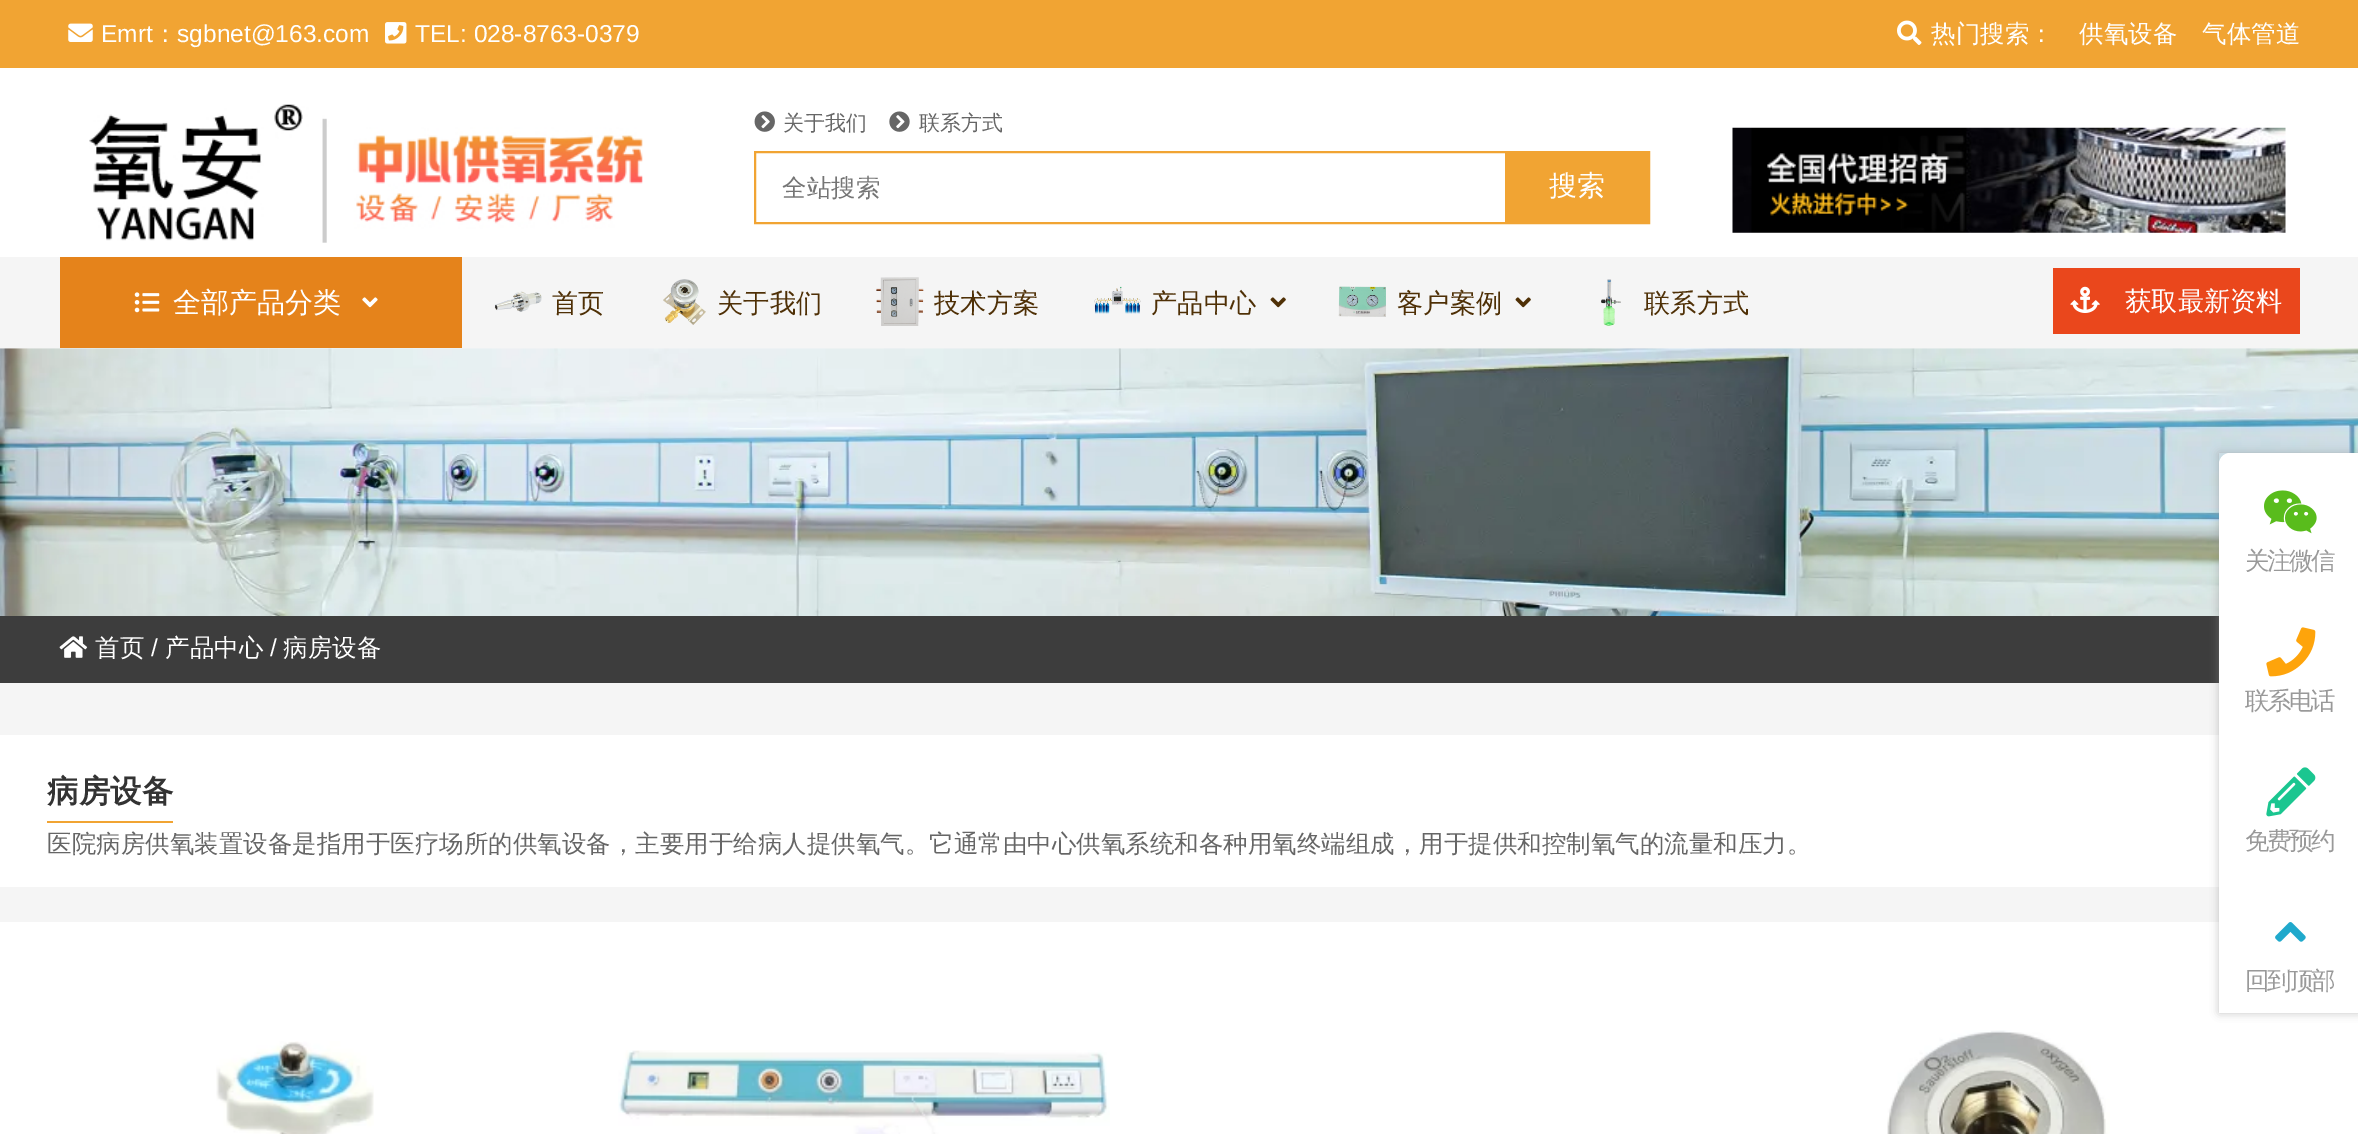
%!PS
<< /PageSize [2358 1134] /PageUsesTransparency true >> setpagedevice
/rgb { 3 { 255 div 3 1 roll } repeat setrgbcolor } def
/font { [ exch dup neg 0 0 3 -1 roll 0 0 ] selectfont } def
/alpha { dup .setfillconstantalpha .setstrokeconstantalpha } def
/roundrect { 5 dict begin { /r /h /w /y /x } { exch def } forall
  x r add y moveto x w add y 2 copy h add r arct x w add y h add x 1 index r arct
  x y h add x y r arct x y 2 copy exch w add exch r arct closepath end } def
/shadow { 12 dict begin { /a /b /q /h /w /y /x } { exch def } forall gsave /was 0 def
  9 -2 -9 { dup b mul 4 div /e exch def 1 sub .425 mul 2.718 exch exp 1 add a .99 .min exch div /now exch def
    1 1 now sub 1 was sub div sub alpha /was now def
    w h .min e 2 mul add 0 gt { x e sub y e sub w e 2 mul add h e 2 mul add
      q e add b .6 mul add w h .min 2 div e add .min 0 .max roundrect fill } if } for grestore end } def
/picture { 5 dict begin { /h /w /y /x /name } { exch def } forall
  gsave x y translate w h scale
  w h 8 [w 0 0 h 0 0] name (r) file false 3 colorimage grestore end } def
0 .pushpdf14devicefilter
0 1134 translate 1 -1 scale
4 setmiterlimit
245 245 245 rgb
0 0 2358 1134 rectfill
241 164 51 rgb
0 0 2358 68 rectfill
(img/1.rgb) 68 23 25 19 picture
(img/2.rgb) 385 22 22 22 picture
(img/3.rgb) 1897 20 25 25 picture
255 255 255 rgb
0 68 2358 189 rectfill
(img/4.rgb) 89 104 554 139 picture
(img/5.rgb) 754 111 21 21 picture
(img/6.rgb) 889 111 21 21 picture
241 164 51 rgb
2 setlinewidth
755 152 894 71 rectstroke
1505 153 143 69 rectfill
(img/7.rgb) 1732 127 554 106 picture
229 131 27 rgb
60 257 402 91 rectfill
(img/8.rgb) 134 292 26 21 picture
(img/9.rgb) 362 297 16 11 picture
(img/10.rgb) 494 291 48 21 picture
(img/11.rgb) 663 279 43 46 picture
(img/12.rgb) 876 277 48 49 picture
(img/13.rgb) 1094 286 47 28 picture
(img/14.rgb) 1270 297 16 11 picture
(img/15.rgb) 1338 286 48 31 picture
(img/14.rgb) 1515 297 16 11 picture
(img/16.rgb) 1601 279 20 47 picture
234 71 28 rgb
2053 268 247 66 rectfill
(img/17.rgb) 2070 286 30 27 picture
(img/18.rgb) 0 348 2358 268 picture
61 61 61 rgb
0 616 2219 67 rectfill
(img/19.rgb) 59 636 29 22 picture
[
  [0 735 2219 152 255 255 255]
  [47 821 126 2 241 164 51]
  [0 922 2358 212 255 255 255]
] { aload pop rgb rectfill } forall
(img/20.rgb) 216 1041 158 93 picture
(img/21.rgb) 618 1050 492 84 picture
(img/22.rgb) 1887 1030 223 104 picture
gsave
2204 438 moveto 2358 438 lineto 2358 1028 lineto 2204 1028 lineto closepath 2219 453 moveto 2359 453 lineto 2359 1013 lineto 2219 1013 lineto closepath eoclip newpath
141 141 141 rgb
2219 453 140 560 0 4.5 0.5 shadow
grestore
2230 453 moveto 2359 453 lineto 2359 593 lineto 2219 593 lineto 2219 464 lineto 2219 458 2224 453 2230 453 curveto closepath fill
(img/23.rgb) 2264 490 53 44 picture
2219 593 139 280 rectfill
(img/24.rgb) 2266 627 50 50 picture
(img/25.rgb) 2266 767 50 50 picture
2219 873 moveto 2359 873 lineto 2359 1013 lineto 2230 1013 lineto 2224 1013 2219 1008 2219 1002 curveto closepath fill
(img/26.rgb) 2275 922 31 20 picture
/LiberationSans-Regular 24.5 font
101 42 moveto (Emrt) show
/WenQuanYiZenHei-Medium 24.5 font
153 42 moveto (：) show
/LiberationSans-Regular 24.5 font
177 42 moveto (sgbnet@163.com) show
415 42 moveto (TEL: 028-8763-0379) show
/WenQuanYiZenHei-Medium 24.5 font
[
  [(热门搜索：) 1931 42]
  [(供氧设备) 2079 42]
  [(气体管道) 2202 42]
] { aload pop moveto show } forall
/WenQuanYiZenHei-Medium 21 font
102 102 102 rgb
783 130 moveto (关于我们) show
919 130 moveto (联系方式) show
/WenQuanYiZenHei-Medium 24.5 font
117 117 117 rgb
782 196 moveto (全站搜索) show
/WenQuanYiZenHei-Medium 28 font
255 255 255 rgb
1549 195 moveto (搜索) show
173 312 moveto (全部产品分类) show
/WenQuanYiZenHei-Medium 26.25 font
79 48 6 rgb
[
  [(首页) 552 312]
  [(关于我们) 717 312]
  [(技术方案) 934 312]
  [(产品中心) 1151 312]
  [(客户案例) 1397 312]
  [(联系方式) 1644 312]
] { aload pop moveto show } forall
255 255 255 rgb
2125 310 moveto (获取最新资料) show
/WenQuanYiZenHei-Medium 24.5 font
95 656 moveto (首页) show
/LiberationSans-Regular 24.5 font
151 656 moveto (/) show
/WenQuanYiZenHei-Medium 24.5 font
165 656 moveto (产品中心) show
/LiberationSans-Regular 24.5 font
270 656 moveto (/) show
/WenQuanYiZenHei-Medium 24.5 font
283 656 moveto (病房设备) show
/WenQuanYiZenHei-Bold 31.5 font
51 51 51 rgb
47 802 moveto (病房设备) show
/WenQuanYiZenHei-Medium 24.5 font
102 102 102 rgb
47 852 moveto (医院病房供氧装置设备是指用于医疗场所的供氧设备，主要用于给病人提供氧气。它通常由中心供氧系统和各种用氧终端组成，用于提供和控制氧气的流量和压力。) show
153 153 153 rgb
2245 569 moveto -2.5 0 (关注微信) ashow
2245 709 moveto -2.5 0 (联系电话) ashow
2245 849 moveto -2.5 0 (免费预约) ashow
2245 989 moveto -2.5 0 (回到顶部) ashow
.poppdf14devicefilter showpage
